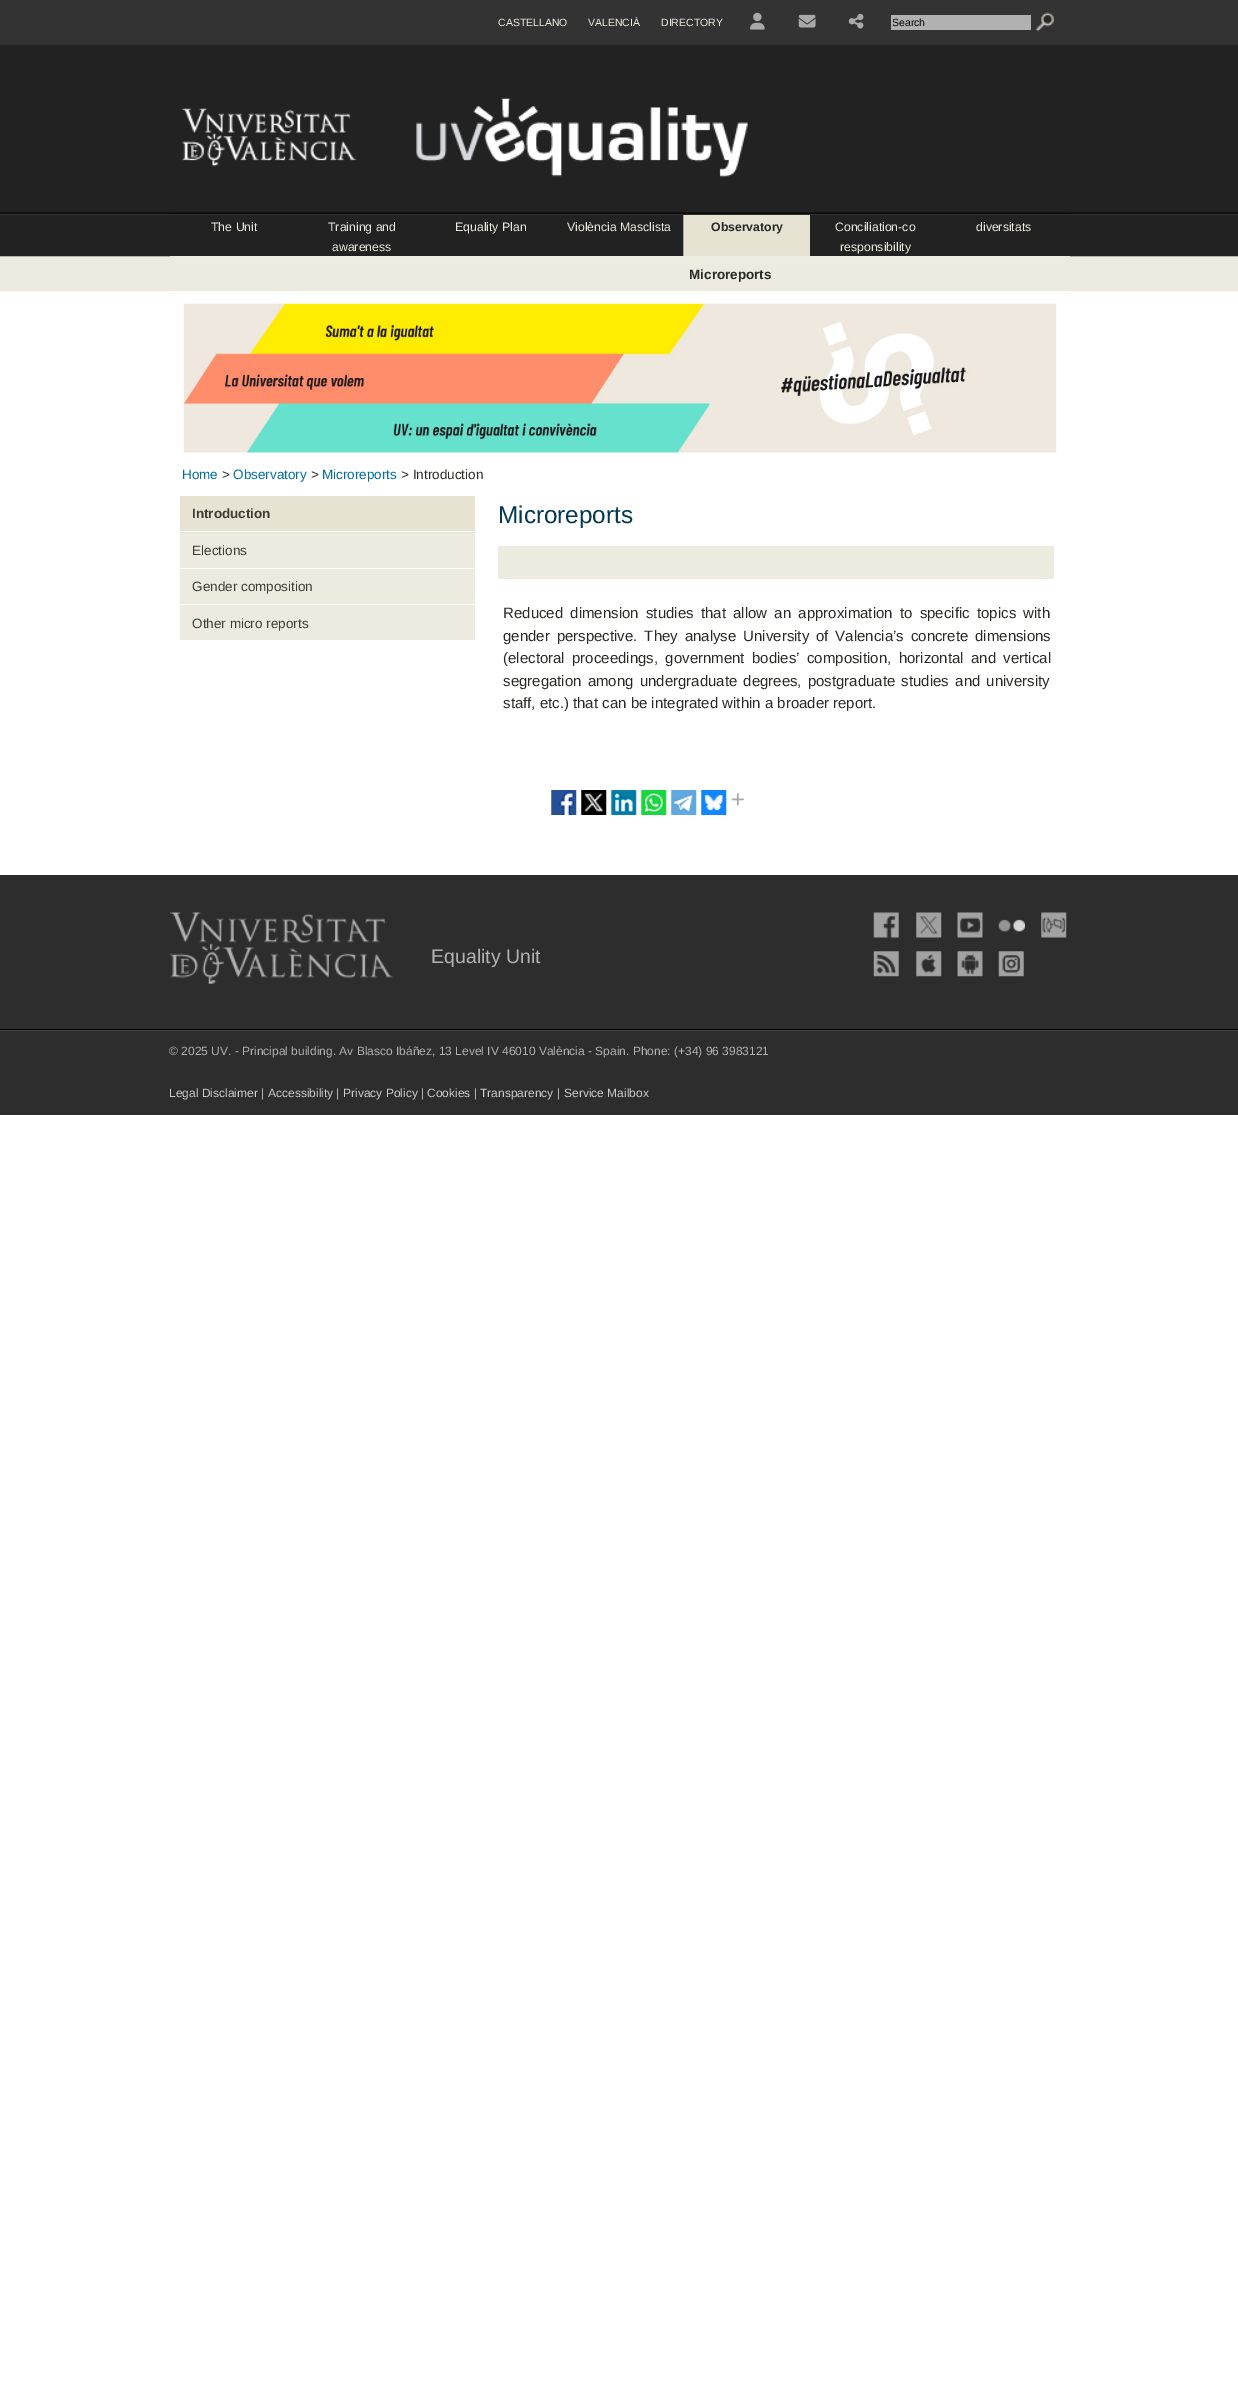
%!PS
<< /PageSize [1238 2387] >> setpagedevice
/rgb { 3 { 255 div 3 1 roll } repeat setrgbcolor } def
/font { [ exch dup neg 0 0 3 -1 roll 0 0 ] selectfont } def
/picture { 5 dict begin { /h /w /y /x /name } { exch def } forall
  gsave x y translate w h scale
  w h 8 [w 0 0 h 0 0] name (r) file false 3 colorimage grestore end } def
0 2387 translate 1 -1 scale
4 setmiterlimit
255 255 255 rgb
0 0 1238 2387 rectfill
(img/1.rgb) 0 0 1238 292 picture
170 291 900 1 rectfill
(img/2.rgb) 750 12 15 18 picture
(img/3.rgb) 798 14 18 14 picture
(img/4.rgb) 848 13 16 16 picture
177 177 177 rgb
891 15 140 15 rectfill
(img/5.rgb) 1036 12 18 20 picture
34 34 34 rgb
170 212 900 2 rectfill
(img/6.rgb) 170 212 900 2 picture
(img/7.rgb) 182 98 566 79 picture
[
  [684 215 126 41 230 227 210]
  [683 215 1 41 166 166 156]
  [170 256 900 1 237 234 223]
] { aload pop rgb rectfill } forall
(img/8.rgb) 183 303 874 150 picture
[
  [180 533 295 107 237 234 223]
  [180 496 295 37 230 227 210]
  [180 531 295 1 255 255 255]
  [180 568 295 1 255 255 255]
  [180 604 295 1 255 255 255]
  [498 546 556 33 237 234 223]
] { aload pop rgb rectfill } forall
(img/9.rgb) 551 790 26 25 picture
(img/10.rgb) 581 790 26 25 picture
(img/11.rgb) 611 790 26 25 picture
(img/12.rgb) 641 790 26 25 picture
(img/13.rgb) 671 790 26 25 picture
(img/14.rgb) 701 790 26 25 picture
(img/15.rgb) 731 793 13 13 picture
45 45 45 rgb
0 875 1238 240 rectfill
(img/16.rgb) 170 912 223 72 picture
(img/17.rgb) 873 912 26 26 picture
(img/18.rgb) 916 912 26 26 picture
(img/19.rgb) 957 912 26 26 picture
(img/20.rgb) 998 919 27 13 picture
(img/21.rgb) 1041 912 26 26 picture
(img/22.rgb) 873 951 26 26 picture
(img/23.rgb) 916 951 26 26 picture
(img/24.rgb) 957 951 26 26 picture
(img/25.rgb) 998 951 26 26 picture
0 0 0 rgb
0 1029 1238 1 rectfill
68 68 68 rgb
0 1030 1238 1 rectfill
/LiberationSans-Regular 10.5 font
237 234 223 rgb
[
  [(CASTELLANO) 498 26]
  [(VALENCIÀ) 588 26]
  [(DIRECTORY) 661 26]
] { aload pop moveto show } forall
gsave
893 15 138 15 rectclip
0 0 0 rgb
892 26 moveto (Search) show
grestore
/LiberationSans-Regular 12.25 font
[
  [(The Unit) 211 231]
  [(Training and) 328 231]
  [(awareness) 332 251]
  [(Equality Plan) 455 231]
  [(Violència Masclista) 567 231]
] { aload pop moveto show } forall
/LiberationSans-Bold 12.25 font
41 42 37 rgb
711 231 moveto (Observatory) show
/LiberationSans-Regular 12.25 font
237 234 223 rgb
[
  [(Conciliation-co) 835 231]
  [(responsibility) 840 251]
  [(diversitats) 976 231]
] { aload pop moveto show } forall
/LiberationSans-Bold 13.5 font
41 42 37 rgb
689 279 moveto (Microreports) show
/LiberationSans-Regular 13.5 font
1 108 162 rgb
182 479 moveto (Home) show
41 42 37 rgb
222 479 moveto (>) show
1 108 162 rgb
233 479 moveto (Observatory) show
41 42 37 rgb
311 479 moveto (>) show
1 108 162 rgb
322 479 moveto (Microreports) show
41 42 37 rgb
401 479 moveto (> Introduction) show
/LiberationSans-Bold 13.5 font
63 60 53 rgb
192 518 moveto (Introduction) show
/LiberationSans-Regular 13.5 font
[
  [(Elections) 192 555]
  [(Gender composition) 192 591]
  [(Other micro reports) 192 628]
] { aload pop moveto show } forall
/LiberationSans-Regular 24.25 font
1 57 82 rgb
498 523 moveto (Microreports) show
/LiberationSans-Regular 15 font
41 42 37 rgb
503 618 moveto 3.1 0 32 (Reduced dimension studies that allow an approximation to specific topics with) widthshow
503 641 moveto 2.75 0 32 (gender perspective. They analyse University of Valencia’s concrete dimensions) widthshow
503 663 moveto 3.25 0 32 (\(electoral proceedings, government bodies’ composition, horizontal and vertical) widthshow
503 686 moveto 2 0 32 (segregation among undergraduate degrees, postgraduate studies and university) widthshow
503 708 moveto (staff, etc.\) that can be integrated within a broader report.) show
/LiberationSans-Regular 19.5 font
178 178 178 rgb
431 963 moveto (Equality Unit) show
/LiberationSans-Regular 12 font
169 1055 moveto (© 2025 UV. - Principal building. Av Blasco Ibáñez, 13 Level IV 46010 València - Spain. Phone: \(+34\) 96 3983121) show
204 204 204 rgb
169 1097 moveto (Legal Disclaimer) show
178 178 178 rgb
261 1097 moveto (|) show
204 204 204 rgb
268 1097 moveto (Accessibility) show
178 178 178 rgb
336 1097 moveto (|) show
204 204 204 rgb
343 1097 moveto (Privacy Policy) show
178 178 178 rgb
421 1097 moveto (|) show
204 204 204 rgb
427 1097 moveto (Cookies) show
178 178 178 rgb
474 1097 moveto (|) show
204 204 204 rgb
480 1097 moveto (Transparency) show
178 178 178 rgb
557 1097 moveto (|) show
204 204 204 rgb
564 1097 moveto (Service Mailbox) show
showpage
